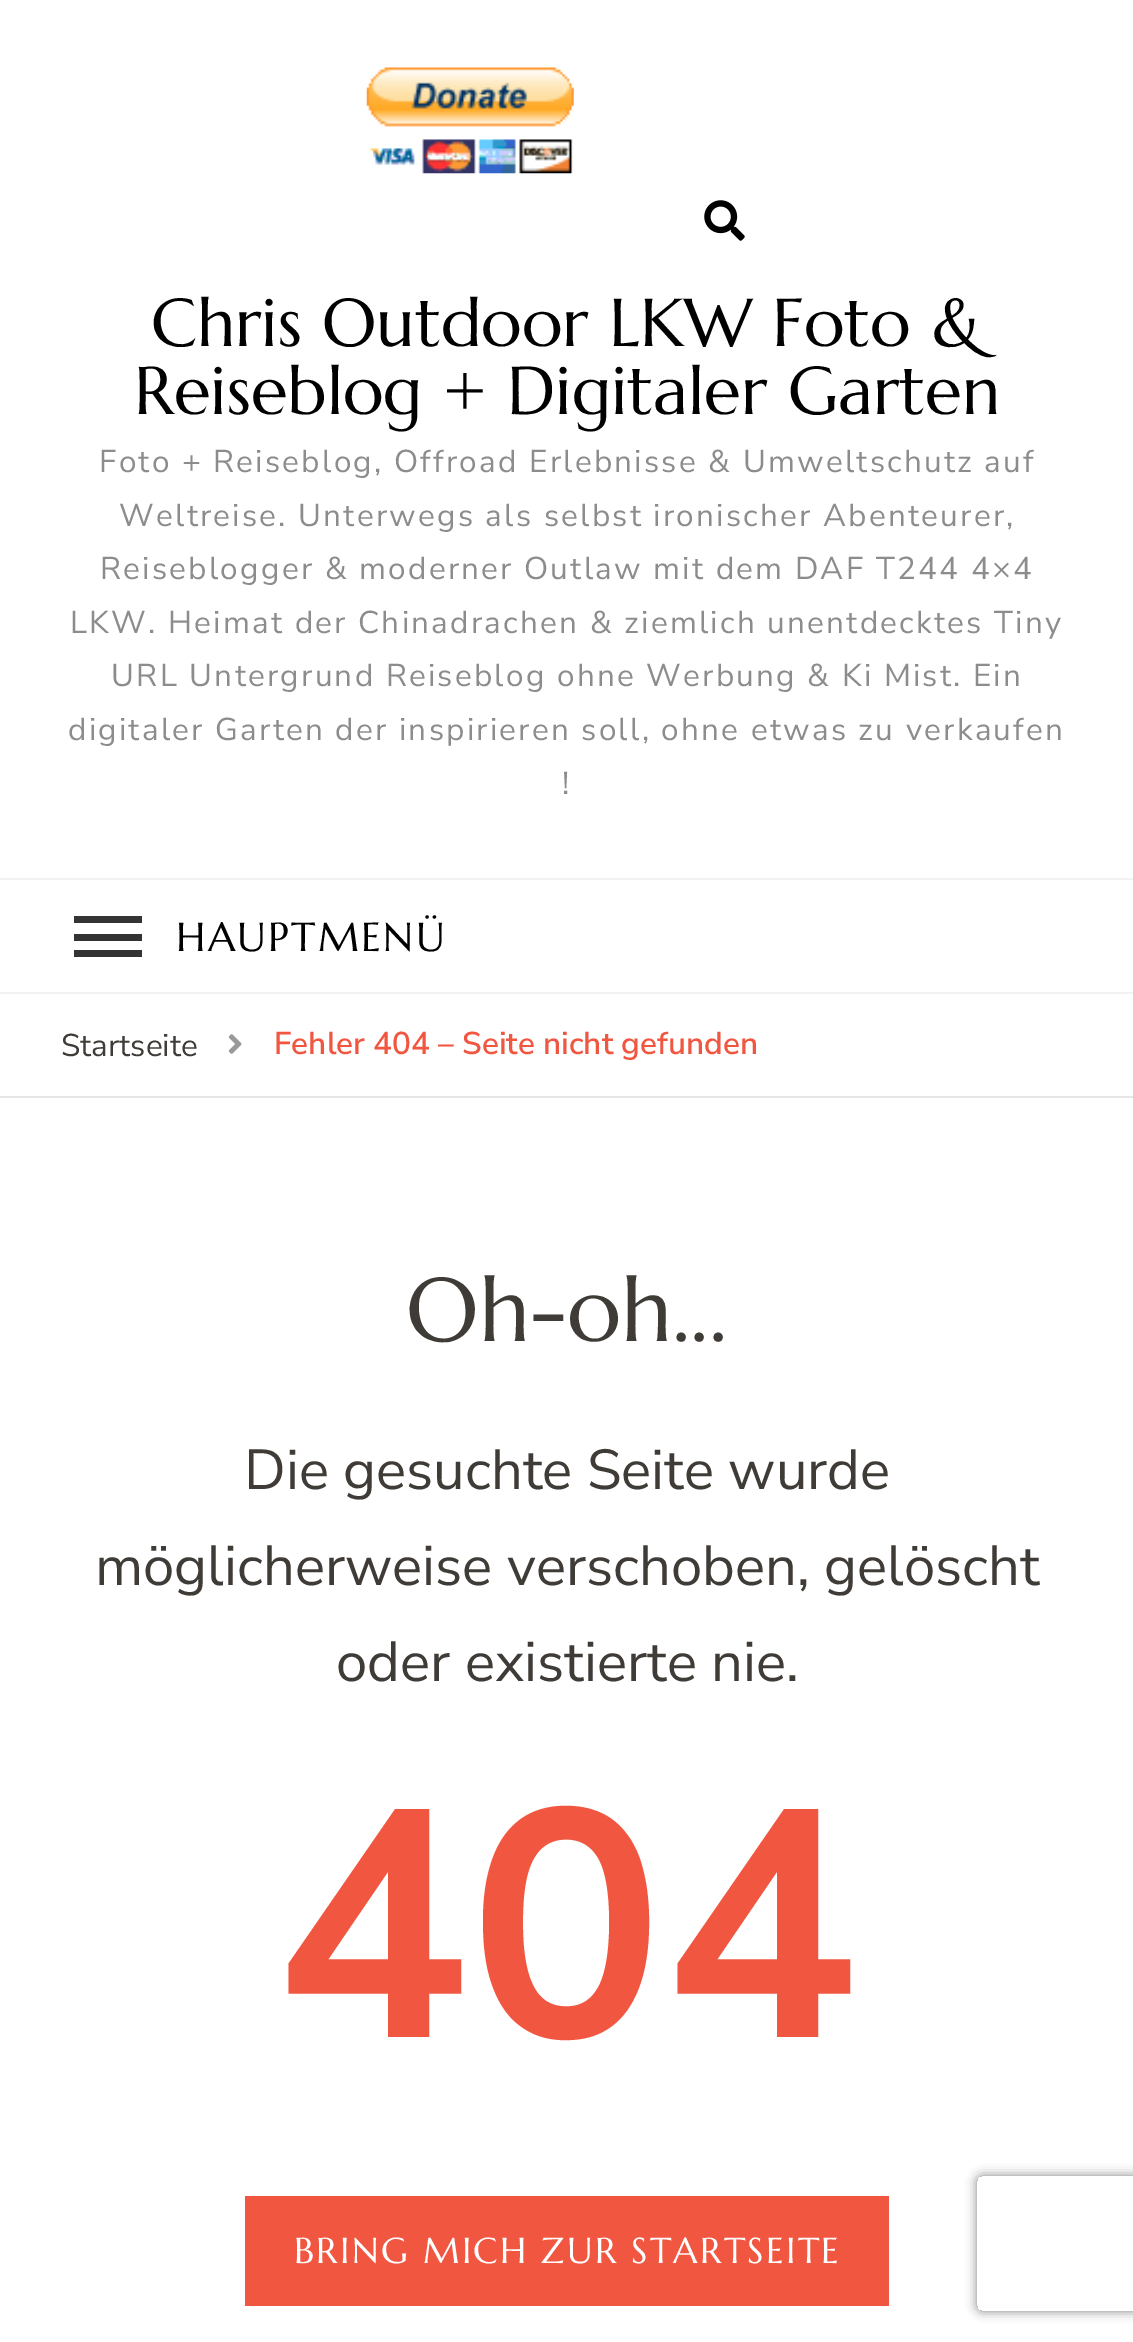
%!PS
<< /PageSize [1133 2342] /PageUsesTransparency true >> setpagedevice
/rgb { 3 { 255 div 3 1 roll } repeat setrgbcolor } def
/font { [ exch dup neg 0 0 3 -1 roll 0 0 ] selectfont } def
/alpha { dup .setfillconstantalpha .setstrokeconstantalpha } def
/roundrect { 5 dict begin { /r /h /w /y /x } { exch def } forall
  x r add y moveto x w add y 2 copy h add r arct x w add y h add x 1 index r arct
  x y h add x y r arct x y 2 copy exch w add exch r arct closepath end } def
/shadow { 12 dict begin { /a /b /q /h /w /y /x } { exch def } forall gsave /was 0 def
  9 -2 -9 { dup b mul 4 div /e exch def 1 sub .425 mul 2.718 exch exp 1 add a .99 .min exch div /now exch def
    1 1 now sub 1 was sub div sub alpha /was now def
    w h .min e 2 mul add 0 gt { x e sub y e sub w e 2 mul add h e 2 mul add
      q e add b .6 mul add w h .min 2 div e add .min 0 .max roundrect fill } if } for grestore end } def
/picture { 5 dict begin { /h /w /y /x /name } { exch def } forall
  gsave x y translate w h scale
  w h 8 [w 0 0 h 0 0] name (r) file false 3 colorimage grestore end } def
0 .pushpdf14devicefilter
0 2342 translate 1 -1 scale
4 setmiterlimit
255 255 255 rgb
0 0 1133 2342 rectfill
242 242 242 rgb
0 992 1133 2 rectfill
(img/1.rgb) 366 67 208 107 picture
(img/2.rgb) 704 200 41 41 picture
[
  [0 878 1133 2 242 242 242]
  [74 916 68 7 51 51 51]
  [74 934 68 7 51 51 51]
  [74 950 68 7 51 51 51]
  [0 1096 1133 2 230 230 230]
] { aload pop rgb rectfill } forall
(img/3.rgb) 228 1034 14 20 picture
241 86 65 rgb
245 2196 644 110 rectfill
gsave
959 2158 moveto 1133 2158 lineto 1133 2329 lineto 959 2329 lineto closepath 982 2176 moveto 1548 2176 lineto 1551 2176 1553 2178 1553 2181 curveto 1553 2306 lineto 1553 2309 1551 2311 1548 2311 curveto 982 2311 lineto 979 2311 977 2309 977 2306 curveto 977 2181 lineto 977 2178 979 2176 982 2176 curveto closepath eoclip newpath
128 128 128 rgb
977 2176 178 135 5 5.5 1 shadow
grestore
/Marcellus-Regular 67.5 font
0 0 0 rgb
151 346 moveto (Chris Outdoor LKW Foto &) show
134 414 moveto (Reiseblog + Digitaler Garten) show
/NunitoSans-Regular 31.5 font
140 140 140 rgb
99 472 moveto 2.25 0 (Foto + Reiseblog, Offroad Erlebnisse & Umweltschutz auf) ashow
119 526 moveto 2.25 0 (Weltreise. Unterwegs als selbst ironischer Abenteurer,) ashow
100 579 moveto 2.25 0 (Reiseblogger & moderner Outlaw mit dem DAF T244 4×4) ashow
70 633 moveto 2.25 0 (LKW. Heimat der Chinadrachen & ziemlich unentdecktes Tiny) ashow
111 686 moveto 2.25 0 (URL Untergrund Reiseblog ohne Werbung & Ki Mist. Ein) ashow
68 740 moveto 2.25 0 (digitaler Garten der inspirieren soll, ohne etwas zu verkaufen) ashow
562 794 moveto 2.25 0 (!) ashow
/Marcellus-Regular 40.5 font
0 0 0 rgb
176 951 moveto 2.25 0 (HAUPTMENÜ) ashow
/NunitoSans-Regular 31.5 font
63 59 54 rgb
61 1056 moveto (Startseite) show
/NunitoSans-SemiBold 31.5 font
241 86 65 rgb
274 1054 moveto (Fehler 404 – Seite nicht gefunden) show
/Marcellus-Regular 90 font
63 59 54 rgb
406 1341 moveto (Oh-oh...) show
/NunitoSans-Regular 56.25 font
[
  [(Die gesuchte Seite wurde) 244 1489]
  [(möglicherweise verschoben, gelöscht) 95 1585]
  [(oder existierte nie.) 336 1681]
] { aload pop moveto show } forall
/NunitoSans-Bold 324 font
241 86 65 rgb
275 2037 moveto (404) show
/Marcellus-Regular 36 font
255 255 255 rgb
294 2263 moveto 2.25 0 (BRING MICH ZUR STARTSEITE) ashow
.poppdf14devicefilter showpage
